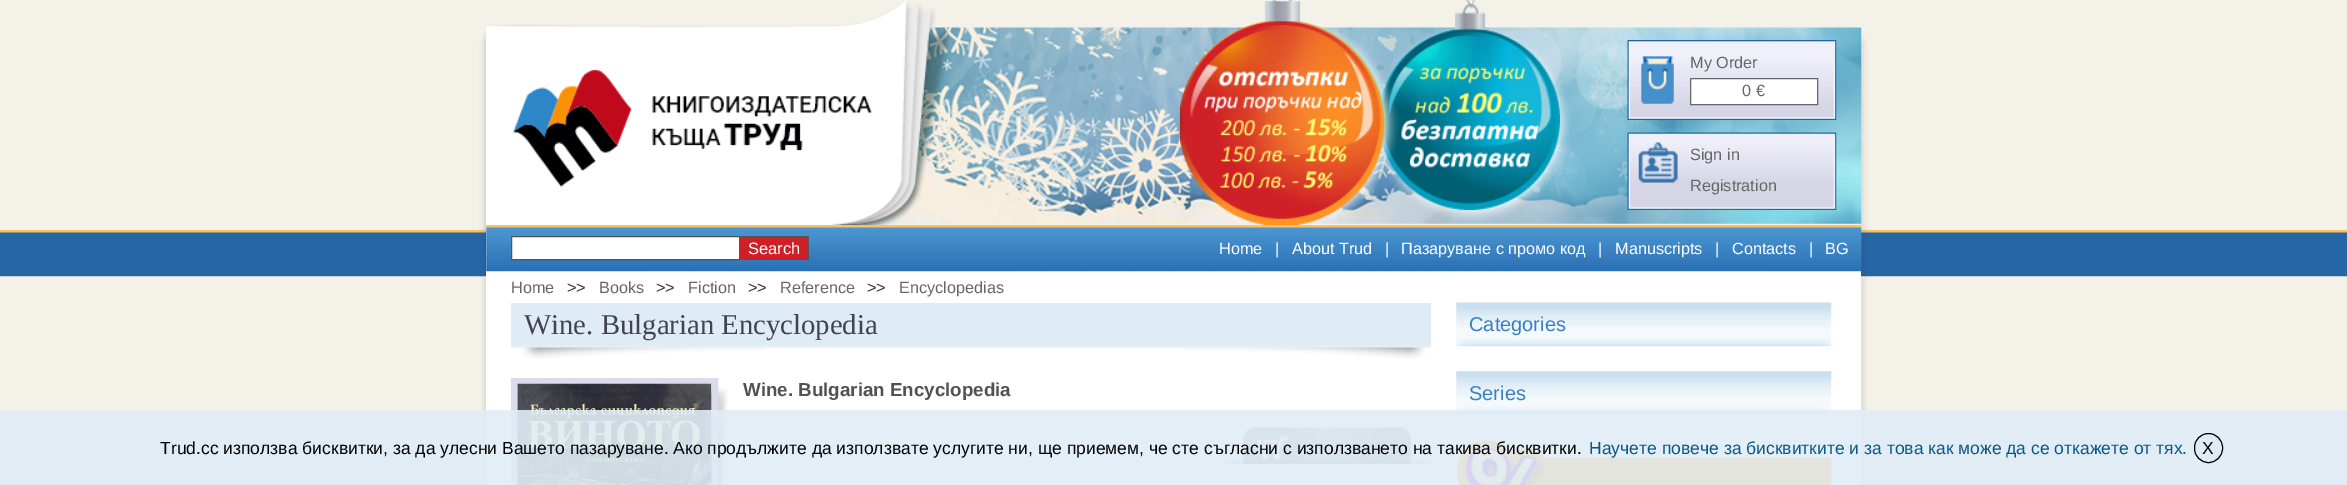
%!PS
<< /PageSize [2347 485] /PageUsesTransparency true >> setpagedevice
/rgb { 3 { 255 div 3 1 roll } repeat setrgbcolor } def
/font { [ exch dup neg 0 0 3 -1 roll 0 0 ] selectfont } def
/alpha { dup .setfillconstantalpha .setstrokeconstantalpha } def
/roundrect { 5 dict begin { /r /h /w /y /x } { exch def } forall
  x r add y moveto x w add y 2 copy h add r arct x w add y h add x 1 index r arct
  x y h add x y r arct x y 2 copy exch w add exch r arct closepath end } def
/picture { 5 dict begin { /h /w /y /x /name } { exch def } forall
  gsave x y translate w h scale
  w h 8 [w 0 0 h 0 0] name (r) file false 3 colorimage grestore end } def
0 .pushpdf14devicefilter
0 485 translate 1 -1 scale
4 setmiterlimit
244 241 232 rgb
0 0 2347 485 rectfill
(img/1.rgb) 0 230 2347 47 picture
(img/2.rgb) 478 31 8 246 picture
(img/3.rgb) 1861 36 8 241 picture
(img/5.rgb) 861 27 1001 197 picture
(img/4.rgb) 1180 0 390 225 picture
486 230 1375 41 rectfill
(img/6.rgb) 486 0 463 225 picture
(img/7.rgb) 1627 40 210 80 picture
255 255 255 rgb
1690.5 78.5 moveto 1817.5 78.5 lineto 1817.5 104.5 lineto 1690.5 104.5 lineto closepath gsave fill grestore
102 102 102 rgb
stroke
(img/8.rgb) 1627 132 210 78 picture
255 255 255 rgb
486 271 1375 19 rectfill
(img/9.rgb) 486 225 1376 47 picture
511.5 236.5 moveto 739.5 236.5 lineto 739.5 259.5 lineto 511.5 259.5 lineto closepath gsave fill grestore
85 85 85 rgb
stroke
[
  [740 237 68 22 207 32 39]
  [740 236 69 1 85 85 85]
  [808 236 1 24 85 85 85]
  [740 259 69 1 85 85 85]
] { aload pop rgb rectfill } forall
(img/10.rgb) 481 277 5 208 picture
(img/11.rgb) 1861 277 6 208 picture
255 255 255 rgb
486 290 1375 195 rectfill
224 236 245 rgb
511 303 920 43 rectfill
(img/12.rgb) 511 346 921 13 picture
(img/13.rgb) 711 388 17 97 picture
219 219 234 rgb
6 setlinewidth
514 381 201 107 rectstroke
(img/14.rgb) 517 383 195 102 picture
(img/15.rgb) 1222 427 209 37 picture
(img/16.rgb) 1456 302 376 45 picture
(img/17.rgb) 1456 371 376 44 picture
(img/18.rgb) 1456 440 376 45 picture
0.9 alpha
224 236 245 rgb
0 410 2347 75 rectfill
1 alpha
0 0 0 rgb
1 setlinewidth
2194.5 433.5 28 29 14 roundrect stroke
/LiberationSans-Regular 16.25 font
102 102 102 rgb
[
  [(My Order) 1690 68]
  [(0 €) 1742 96]
  [(Sign in) 1690 160]
  [(Registration) 1690 191]
] { aload pop moveto show } forall
/LiberationSans-Regular 16.5 font
255 255 255 rgb
748 254 moveto (Search) show
/LiberationSans-Regular 16.25 font
[
  [(Home) 1219 254]
  [(|) 1275 254]
  [(About Trud) 1292 254]
  [(|) 1385 254]
  [(Пазаруване с промо код) 1401 254]
  [(|) 1598 254]
  [(Manuscripts) 1615 254]
  [(|) 1715 254]
  [(Contacts) 1732 254]
  [(|) 1809 254]
  [(BG) 1825 254]
] { aload pop moveto show } forall
102 102 102 rgb
511 293 moveto (Home) show
51 51 51 rgb
567 293 moveto (>>) show
102 102 102 rgb
599 293 moveto (Books) show
51 51 51 rgb
656 293 moveto (>>) show
102 102 102 rgb
688 293 moveto (Fiction) show
51 51 51 rgb
748 293 moveto (>>) show
102 102 102 rgb
780 293 moveto (Reference) show
51 51 51 rgb
867 293 moveto (>>) show
102 102 102 rgb
899 293 moveto (Encyclopedias) show
/LiberationSerif-Regular 28.75 font
66 66 81 rgb
524 334 moveto (Wine. Bulgarian Encyclopedia) show
/LiberationSans-Bold 18.75 font
82 82 82 rgb
743 396 moveto (Wine. Bulgarian Encyclopedia) show
/LiberationSans-Regular 20 font
56 128 193 rgb
1469 331 moveto (Categories) show
1469 400 moveto (Series) show
/LiberationSans-Regular 17.5 font
0 0 0 rgb
160 454 moveto (Trud.cc използва бисквитки, за да улесни Вашето пазаруване. Ако продължите да използвате услугите ни, ще приемем, че сте съгласни с използването на такива бисквитки.) show
7 87 137 rgb
1589 454 moveto (Научете повече за бисквитките и за това как може да се откажете от тях.) show
0 0 0 rgb
2202 454 moveto (X) show
.poppdf14devicefilter showpage
